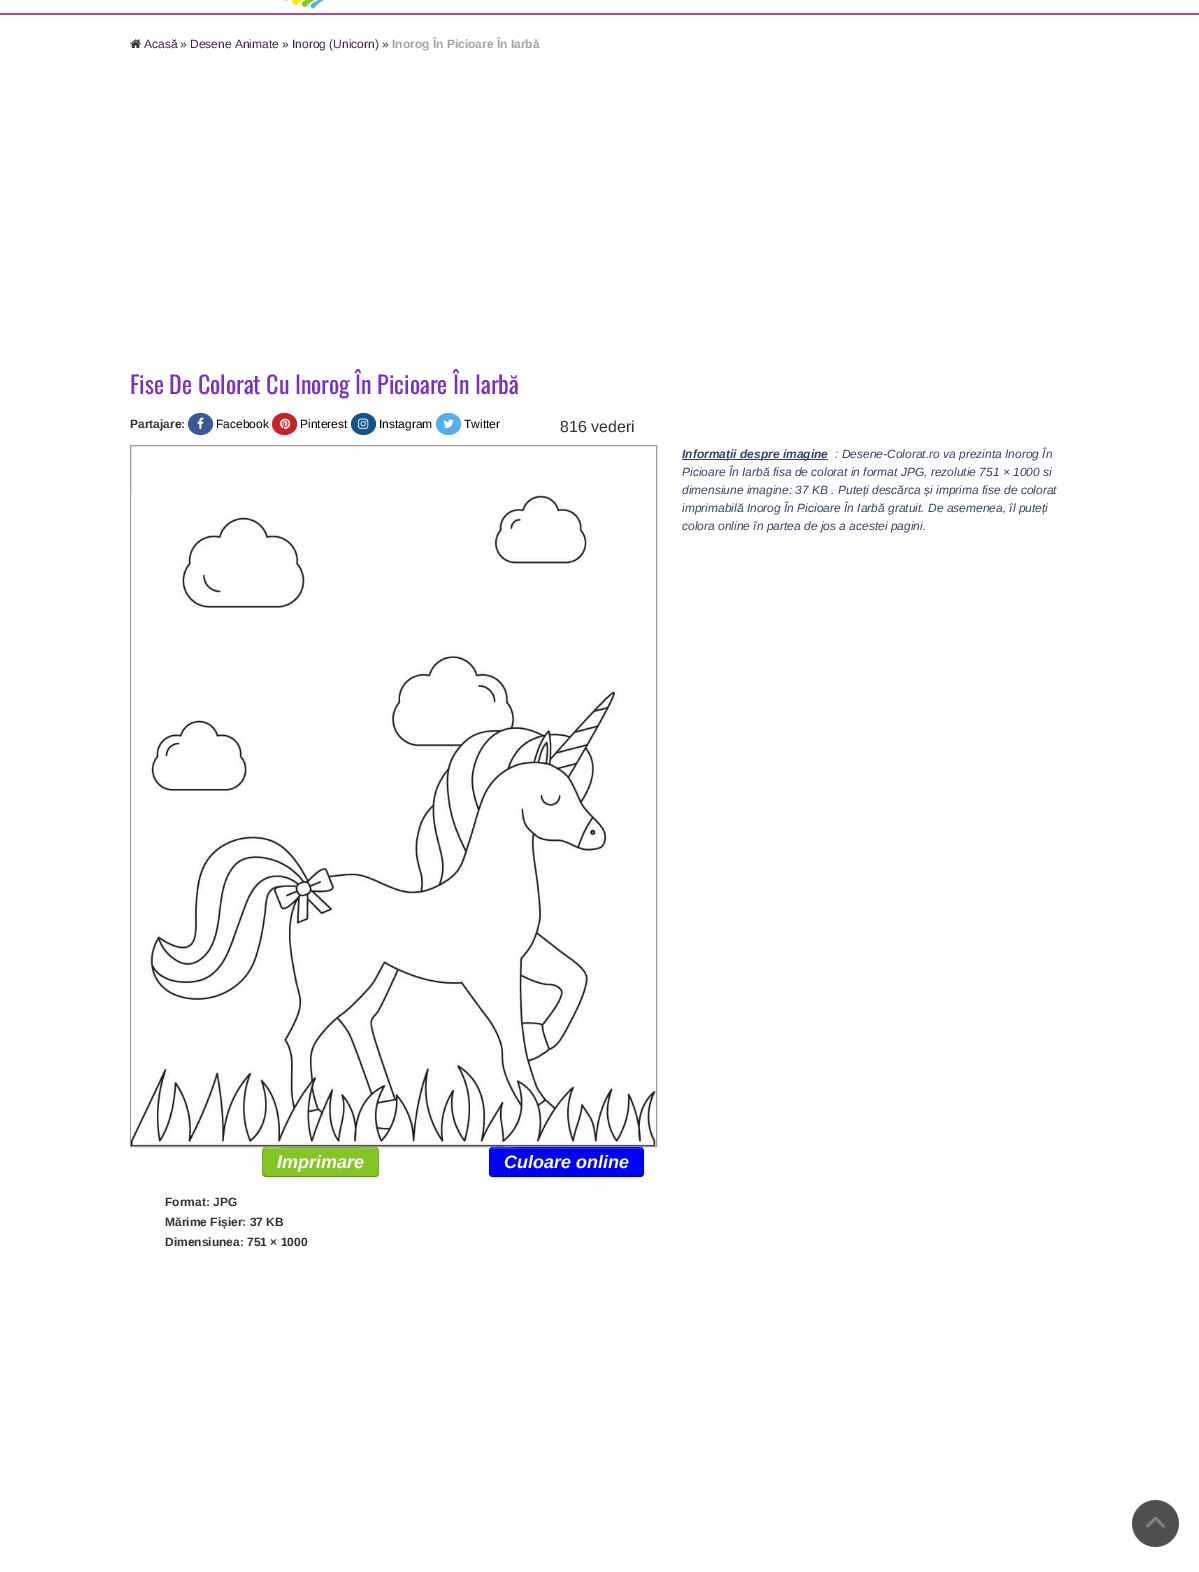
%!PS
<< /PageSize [1199 1572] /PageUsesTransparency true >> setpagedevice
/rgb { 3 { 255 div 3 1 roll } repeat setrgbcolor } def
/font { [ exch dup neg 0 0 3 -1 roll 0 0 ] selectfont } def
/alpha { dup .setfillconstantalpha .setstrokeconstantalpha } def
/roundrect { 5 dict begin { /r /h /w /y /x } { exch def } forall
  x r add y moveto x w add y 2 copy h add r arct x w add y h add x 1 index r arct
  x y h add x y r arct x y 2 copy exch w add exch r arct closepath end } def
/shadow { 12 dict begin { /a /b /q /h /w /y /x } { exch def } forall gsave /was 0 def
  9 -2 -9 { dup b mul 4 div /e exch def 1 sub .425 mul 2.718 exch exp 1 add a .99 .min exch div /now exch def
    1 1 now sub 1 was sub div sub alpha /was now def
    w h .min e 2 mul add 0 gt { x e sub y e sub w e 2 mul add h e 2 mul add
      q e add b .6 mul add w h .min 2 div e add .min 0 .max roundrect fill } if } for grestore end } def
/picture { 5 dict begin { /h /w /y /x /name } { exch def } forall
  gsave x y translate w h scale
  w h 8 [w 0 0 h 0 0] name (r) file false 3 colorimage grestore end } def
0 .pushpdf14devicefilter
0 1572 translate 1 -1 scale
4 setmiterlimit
255 255 255 rgb
0 0 1199 1572 rectfill
176 79 141 rgb
0 13 1199 2 rectfill
(img/1.rgb) 284 0 40 9 picture
(img/2.rgb) 130 39 11 9 picture
59 89 152 rgb
200.5 413 moveto 207.5 413 213 418 213 424 curveto 213 430 207.5 435 200.5 435 curveto 193.5 435 188 430 188 424 curveto 188 418 193.5 413 200.5 413 curveto closepath fill
(img/3.rgb) 197 417 7 12 picture
203 32 39 rgb
284.5 413 moveto 291.5 413 297 418 297 424 curveto 297 430 291.5 435 284.5 435 curveto 277.5 435 272 430 272 424 curveto 272 418 277.5 413 284.5 413 curveto closepath fill
(img/4.rgb) 280 418 11 11 picture
18 86 136 rgb
363.5 413 moveto 370.5 413 376 418 376 424 curveto 376 430 370.5 435 363.5 435 curveto 356.5 435 351 430 351 424 curveto 351 418 356.5 413 363.5 413 curveto closepath fill
(img/5.rgb) 358 418 11 11 picture
85 172 238 rgb
448.5 413 moveto 455.5 413 461 418 461 424 curveto 461 430 455.5 435 448.5 435 curveto 441.5 435 436 430 436 424 curveto 436 418 441.5 413 448.5 413 curveto closepath fill
(img/6.rgb) 443 419 11 9 picture
153 153 153 rgb
130.5 445.5 526 701 rectstroke
(img/7.rgb) 131 492 525 654 picture
53 67 96 rgb
682 459 146 1 rectfill
0 0 0 rgb
262 1148 117 30 4 1 0.05 shadow
132 196 35 rgb
262 1147 117 30 4 roundrect fill
157 208 79 rgb
266 1149 moveto 375 1149 lineto 377 1149 378 1150 378 1152 curveto 378 1150 377 1148 375 1148 curveto 284 1148 lineto 283 1148 263 1143 263 1152 curveto 263 1150 264 1149 266 1149 curveto closepath fill
0.25 alpha
0 0 0 rgb
377.5 1175.5 moveto 375.5 1176.5 lineto 284 1176.5 lineto 266 1176.5 lineto 263.5 1175.5 lineto stroke
0.1 alpha
263.5 1175.5 moveto 261.5 1173.5 262.5 1165 262.5 1162 curveto 262.5 1143 261.5 1147.5 284 1147.5 curveto 357 1147.5 lineto 379.5 1147.5 378.5 1143 378.5 1162 curveto 378.5 1165 379.5 1173.5 377.5 1175.5 curveto stroke
1 alpha
489 1148 155 30 4 1 0.05 shadow
0 0 255 rgb
489 1147 155 30 4 roundrect fill
51 51 255 rgb
493 1149 moveto 640 1149 lineto 642 1149 643 1150 643 1152 curveto 643 1150 643 1149 641 1148 curveto 518 1148 lineto 510 1148 490 1143 490 1152 curveto 490 1150 491 1149 493 1149 curveto closepath fill
0.25 alpha
0 0 0 rgb
642.5 1175.5 moveto 642 1176 641 1176.5 640 1176.5 curveto 493 1176.5 lineto 492 1176.5 491 1176 490.5 1175.5 curveto stroke
0.1 alpha
490.5 1175.5 moveto 488.5 1173.5 489.5 1165 489.5 1162 curveto 489.5 1154.5 lineto 489.5 1152 489 1147.5 493 1147.5 curveto 640 1147.5 lineto 644 1147.5 643.5 1152 643.5 1154.5 curveto 643.5 1162 lineto 643.5 1165 644.5 1173.5 642.5 1175.5 curveto stroke
1 alpha
(img/8.rgb) 1132 1500 47 47 picture
/LiberationSans-Regular 12 font
60 36 68 rgb
144 48 moveto (Acasă) show
51 51 51 rgb
180 48 moveto (») show
60 36 68 rgb
190 48 moveto (Desene Animate) show
51 51 51 rgb
282 48 moveto (») show
60 36 68 rgb
292 48 moveto (Inorog \(Unicorn\)) show
51 51 51 rgb
382 48 moveto (») show
/LiberationSans-Bold 12 font
161 163 166 rgb
392 48 moveto (Inorog În Picioare În Iarbă) show
/Oswald-Regular 24 font
118 46 206 rgb
130 394 moveto (Fise De Colorat Cu Inorog În Picioare În Iarbă) show
/LiberationSans-Bold 12 font
51 51 51 rgb
130 428 moveto (Partajare:) show
/LiberationSans-Regular 12 font
0 0 0 rgb
[
  [(Facebook) 216 428]
  [(Pinterest) 300 428]
  [(Instagram) 379 428]
  [(Twitter) 464 428]
] { aload pop moveto show } forall
/LiberationSans-Regular 16 font
51 51 51 rgb
560 432 moveto (816 vederi) show
/LiberationSans-BoldItalic 12 font
53 67 96 rgb
682 458 moveto (Informații despre imagine) show
/LiberationSans-Italic 12 font
[
  [(: Desene-Colorat.ro va prezinta Inorog În) 835 458]
  [(Picioare În Iarbă fisa de colorat in format JPG, rezolutie 751 × 1000 si) 682 476]
  [(dimensiune imagine: 37 KB . Puteți descărca și imprima fise de colorat) 682 494]
  [(imprimabilă Inorog În Picioare În Iarbă gratuit. De asemenea, îl puteți) 682 512]
  [(colora online în partea de jos a acestei pagini.) 682 530]
] { aload pop moveto show } forall
/LiberationSans-BoldItalic 18 font
255 255 255 rgb
277 1168 moveto (Imprimare) show
504 1168 moveto (Culoare online) show
/LiberationSans-Bold 12 font
51 51 51 rgb
[
  [(Format: JPG) 165 1206]
  [(Mărime Fișier: 37 KB) 165 1226]
  [(Dimensiunea: 751 × 1000) 165 1246]
] { aload pop moveto show } forall
.poppdf14devicefilter showpage
